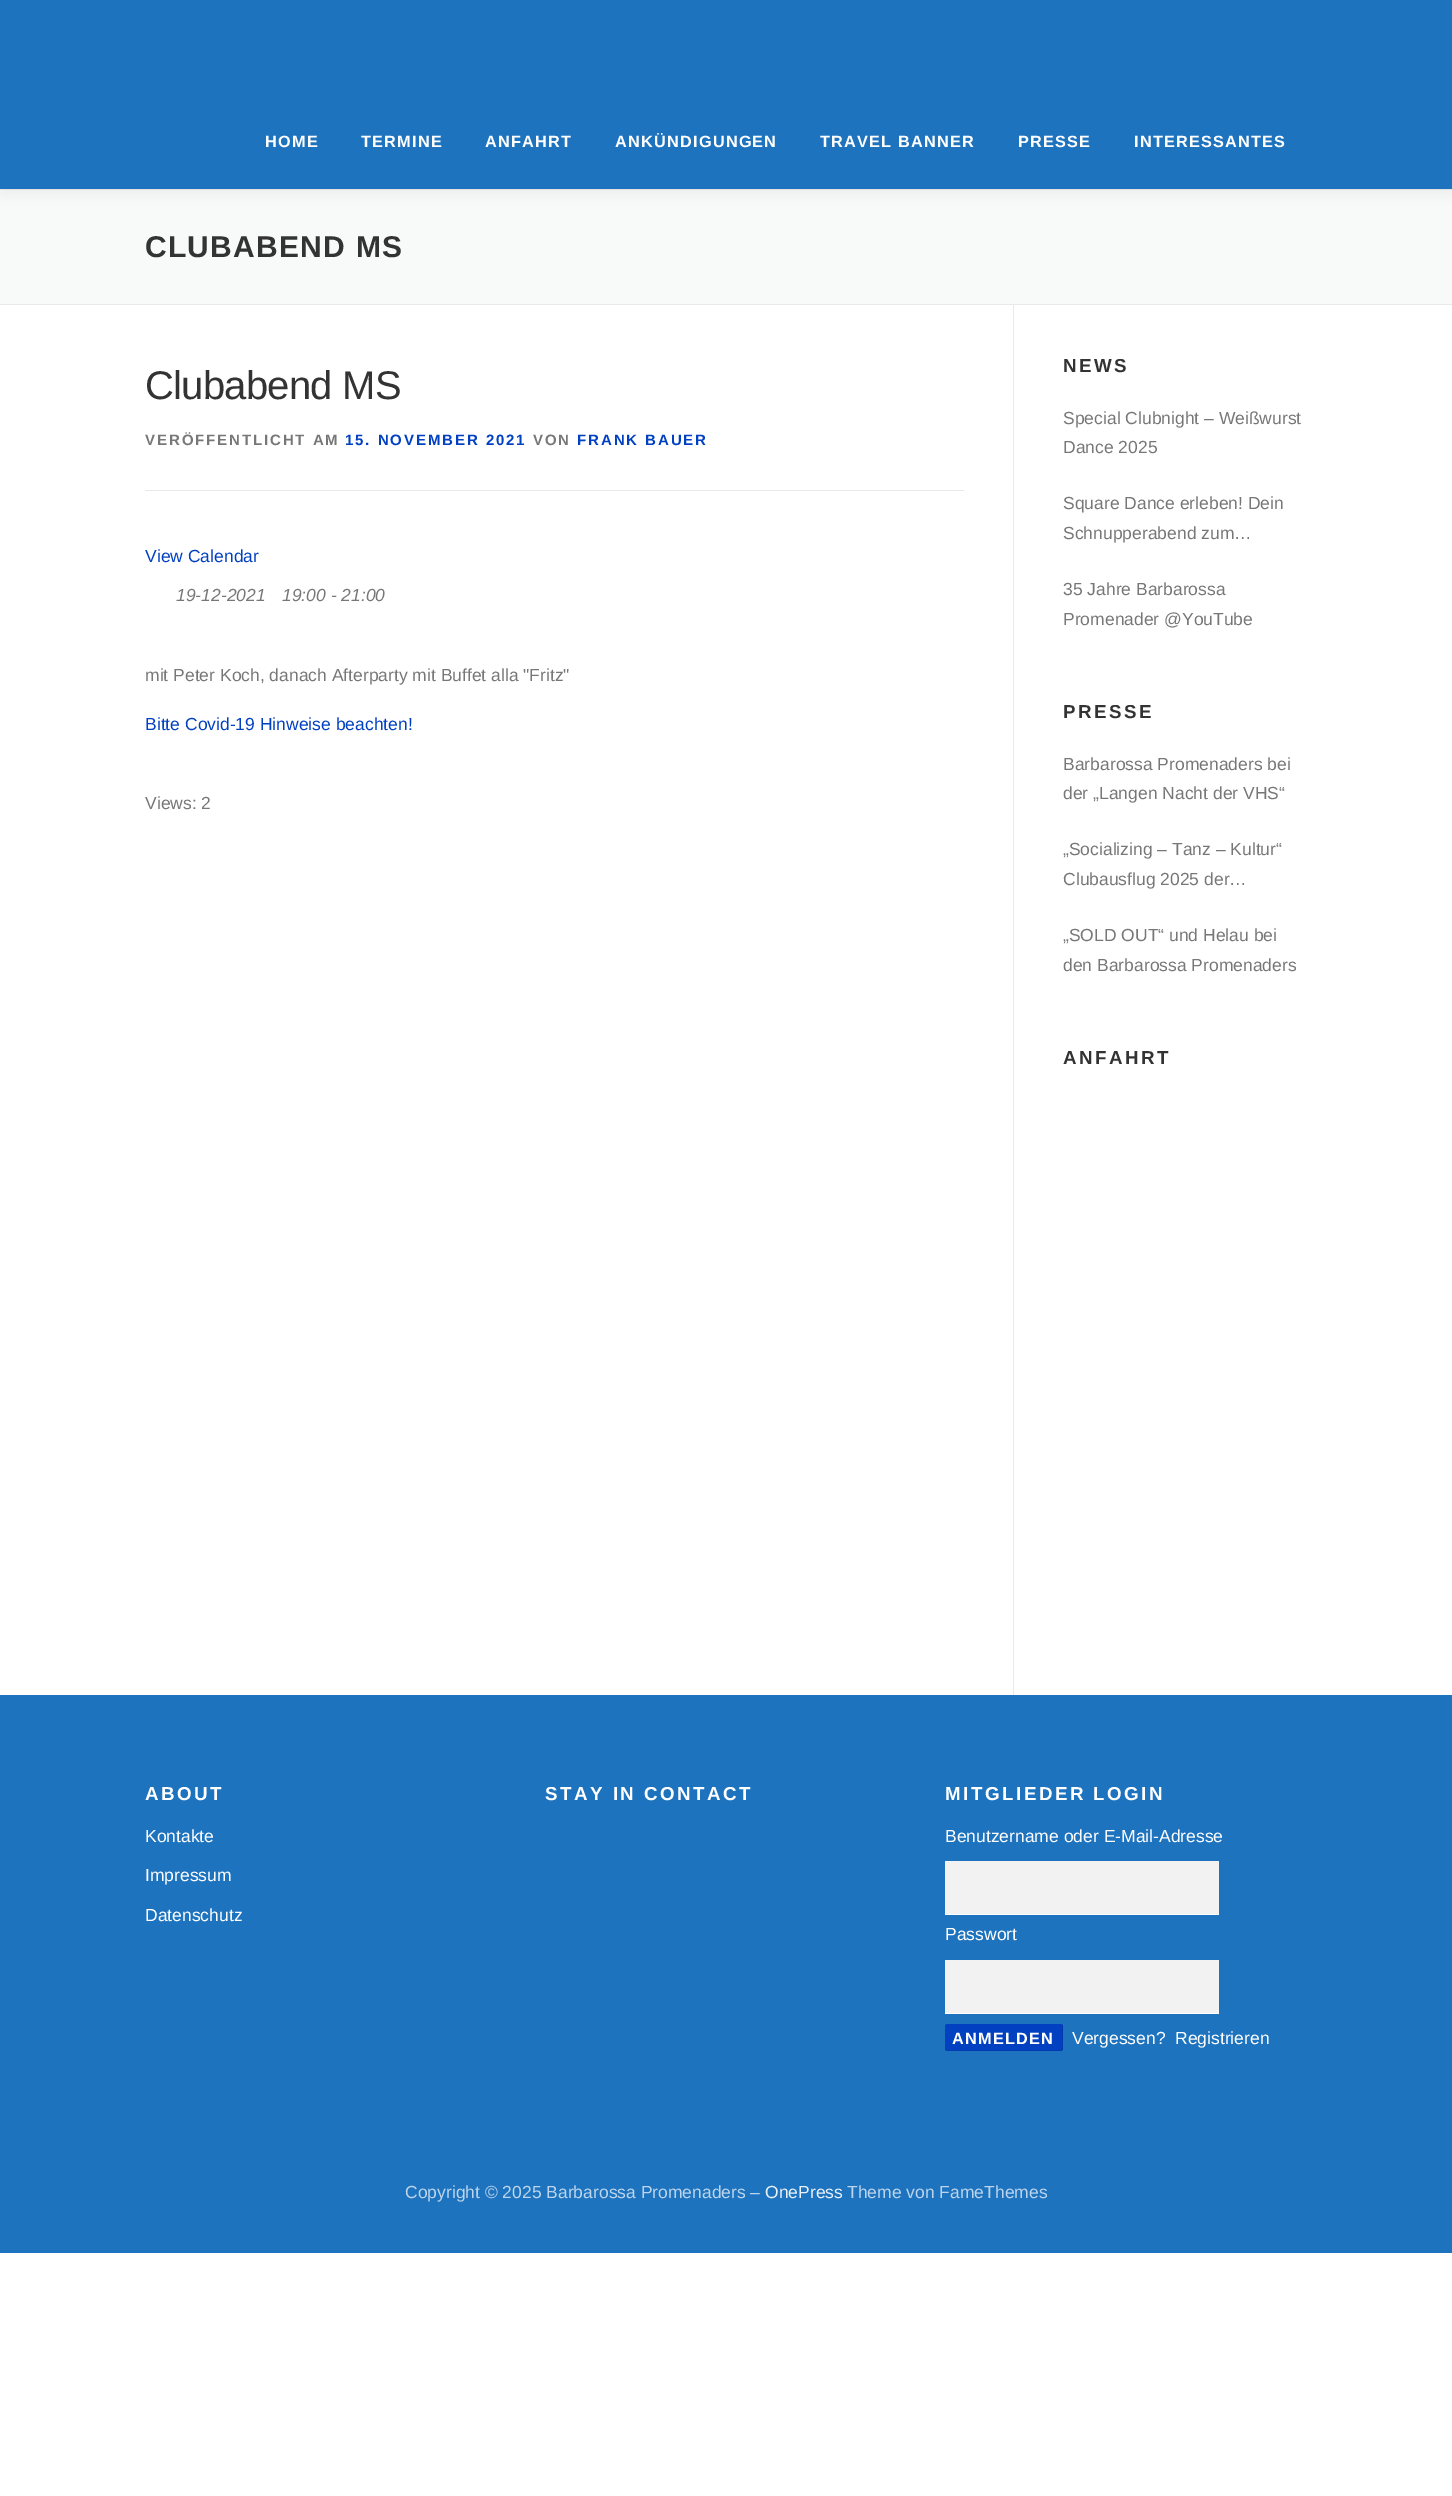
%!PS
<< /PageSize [1452 2496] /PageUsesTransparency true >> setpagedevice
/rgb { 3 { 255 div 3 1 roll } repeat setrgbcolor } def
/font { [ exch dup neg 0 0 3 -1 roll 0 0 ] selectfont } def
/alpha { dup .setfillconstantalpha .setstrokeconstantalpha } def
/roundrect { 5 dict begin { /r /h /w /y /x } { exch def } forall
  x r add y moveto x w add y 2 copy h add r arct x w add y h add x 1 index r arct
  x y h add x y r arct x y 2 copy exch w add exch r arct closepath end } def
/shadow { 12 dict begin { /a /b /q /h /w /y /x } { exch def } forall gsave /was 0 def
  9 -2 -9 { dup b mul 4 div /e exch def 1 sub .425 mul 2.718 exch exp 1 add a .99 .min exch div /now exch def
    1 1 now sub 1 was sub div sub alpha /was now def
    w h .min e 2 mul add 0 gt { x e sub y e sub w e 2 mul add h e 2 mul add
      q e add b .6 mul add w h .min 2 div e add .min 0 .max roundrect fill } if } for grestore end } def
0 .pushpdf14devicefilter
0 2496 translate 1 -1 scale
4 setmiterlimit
255 255 255 rgb
0 0 1452 2496 rectfill
248 249 249 rgb
0 190 1452 114 rectfill
233 233 233 rgb
0 189 1452 1 rectfill
50 50 50 rgb
0 6 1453 189 0 6 0.06 shadow
[
  [0 0 1452 189 30 115 190]
  [0 304 1452 1 233 233 233]
  [145 490 819 1 233 233 233]
  [1013 305 1 1390 233 233 233]
  [0 1695 1452 558 30 115 190]
  [945 1861 274 53 242 242 242]
  [945 1914 274 1 255 255 255]
  [945 1960 274 53 242 242 242]
  [945 2013 274 1 255 255 255]
] { aload pop rgb rectfill } forall
0 64 193 rgb
945 2024 118 27 2.5 roundrect fill
0.1 alpha
0 0 0 rgb
945 2048 moveto 945 2050 946 2051 948 2051 curveto 1060 2051 lineto 1062 2051 1063 2050 1063 2048 curveto 1063 2026 lineto 1063 2026 1063 2025 1062 2024 curveto 1062 2040 lineto 1062 2042 1064 2050 1060 2050 curveto 967 2050 lineto 961 2050 945 2052 945 2048 curveto closepath fill
/LiberationSans-Bold 16.25 font
1 alpha
255 255 255 rgb
265 147 moveto 1.25 0 (HOME) ashow
361 147 moveto 1.25 0 (TERMINE) ashow
485 147 moveto 1.25 0 (ANFAHRT) ashow
615 147 moveto 1.25 0 (ANKÜNDIGUNGEN) ashow
820 147 moveto 1.25 0 (TRAVEL BANNER) ashow
1018 147 moveto 1.25 0 (PRESSE) ashow
1134 147 moveto 1.25 0 (INTERESSANTES) ashow
/LiberationSans-Bold 30 font
51 51 51 rgb
145 257 moveto 1.25 0 (CLUBABEND MS) ashow
/LiberationSans-Regular 40 font
145 399 moveto -0.75 0 (Clubabend MS) ashow
/LiberationSans-Bold 15 font
119 119 119 rgb
145 445 moveto 1.9 0 (VERÖFFENTLICHT AM) ashow
0 64 193 rgb
345 445 moveto 1.9 0 (15. NOVEMBER 2021) ashow
119 119 119 rgb
533 445 moveto 1.9 0 (VON) ashow
0 64 193 rgb
577 445 moveto 1.9 0 (FRANK BAUER) ashow
/LiberationSans-Regular 17.5 font
145 562 moveto (View Calendar) show
/LiberationSans-Italic 17.5 font
119 119 119 rgb
176 601 moveto (19-12-2021) show
282 601 moveto (19:00 - 21:00) show
/LiberationSans-Regular 17.5 font
145 681 moveto (mit Peter Koch, danach Afterparty mit Buffet alla "Fritz") show
0 64 193 rgb
145 730 moveto (Bitte Covid-19 Hinweise beachten!) show
119 119 119 rgb
145 809 moveto (Views: 2) show
/LiberationSans-Bold 18.75 font
51 51 51 rgb
1063 372 moveto 2.5 0 (NEWS) ashow
/LiberationSans-Regular 17.5 font
119 119 119 rgb
[
  [(Special Clubnight – Weißwurst) 1063 424]
  [(Dance 2025) 1063 453]
  [(Square Dance erleben! Dein) 1063 509]
  [(Schnupperabend zum…) 1063 539]
  [(35 Jahre Barbarossa) 1063 595]
  [(Promenader @YouTube) 1063 625]
] { aload pop moveto show } forall
/LiberationSans-Bold 18.75 font
51 51 51 rgb
1063 718 moveto 2.5 0 (PRESSE) ashow
/LiberationSans-Regular 17.5 font
119 119 119 rgb
[
  [(Barbarossa Promenaders bei) 1063 770]
  [(der „Langen Nacht der VHS“) 1063 799]
  [(„Socializing – Tanz – Kultur“) 1063 855]
  [(Clubausflug 2025 der…) 1063 885]
  [(„SOLD OUT“ und Helau bei) 1063 941]
  [(den Barbarossa Promenaders) 1063 971]
] { aload pop moveto show } forall
/LiberationSans-Bold 18.75 font
51 51 51 rgb
1063 1064 moveto 2.5 0 (ANFAHRT) ashow
255 255 255 rgb
145 1800 moveto 2.5 0 (ABOUT) ashow
/LiberationSans-Regular 17.5 font
[
  [(Kontakte) 145 1842]
  [(Impressum) 145 1881]
  [(Datenschutz) 145 1921]
] { aload pop moveto show } forall
/LiberationSans-Bold 18.75 font
545 1800 moveto 2.5 0 (STAY IN CONTACT) ashow
945 1800 moveto 2.5 0 (MITGLIEDER LOGIN) ashow
/LiberationSans-Regular 17.5 font
945 1842 moveto (Benutzername oder E-Mail-Adresse) show
945 1940 moveto (Passwort) show
/LiberationSans-Bold 16.25 font
952 2044 moveto 1.25 0 (ANMELDEN) ashow
/LiberationSans-Regular 17.5 font
1072 2044 moveto (Vergessen?) show
1175 2044 moveto (Registrieren) show
188 213 236 rgb
405 2198 moveto (Copyright © 2025 Barbarossa Promenaders –) show
233 241 249 rgb
765 2198 moveto (OnePress) show
188 213 236 rgb
847 2198 moveto (Theme von FameThemes) show
.poppdf14devicefilter showpage
